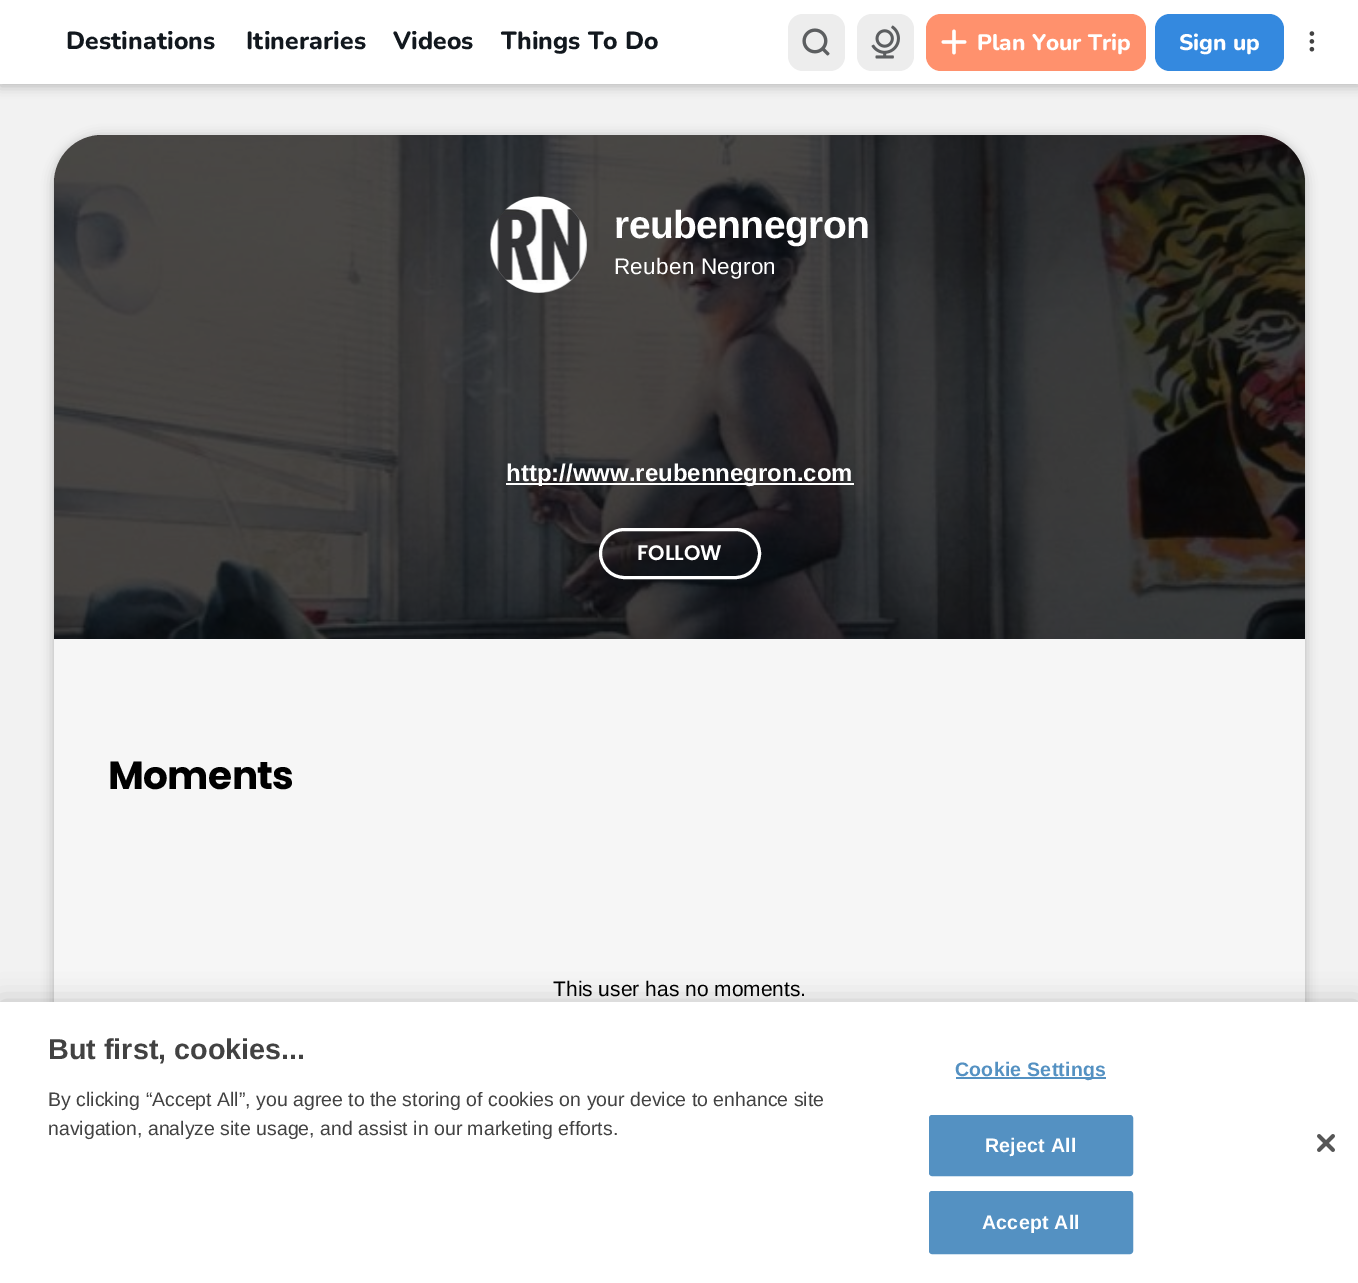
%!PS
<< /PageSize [1358 1283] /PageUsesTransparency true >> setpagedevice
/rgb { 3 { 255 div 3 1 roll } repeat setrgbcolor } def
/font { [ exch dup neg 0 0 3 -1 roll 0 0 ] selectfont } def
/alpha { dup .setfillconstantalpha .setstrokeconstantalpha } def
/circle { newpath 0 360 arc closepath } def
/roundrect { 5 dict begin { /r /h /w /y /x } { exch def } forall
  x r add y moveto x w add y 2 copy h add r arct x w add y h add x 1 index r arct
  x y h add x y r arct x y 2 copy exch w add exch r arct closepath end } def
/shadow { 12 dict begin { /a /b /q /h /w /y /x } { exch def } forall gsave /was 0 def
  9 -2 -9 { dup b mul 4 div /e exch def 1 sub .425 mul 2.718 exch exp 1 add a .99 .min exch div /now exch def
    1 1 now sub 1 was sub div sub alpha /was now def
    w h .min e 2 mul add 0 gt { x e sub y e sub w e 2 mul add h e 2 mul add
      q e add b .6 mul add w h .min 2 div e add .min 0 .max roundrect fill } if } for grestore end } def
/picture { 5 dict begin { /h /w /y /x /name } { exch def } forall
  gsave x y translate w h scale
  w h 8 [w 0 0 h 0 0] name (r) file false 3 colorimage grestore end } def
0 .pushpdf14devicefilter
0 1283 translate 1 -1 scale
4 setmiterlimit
242 242 242 rgb
0 0 1358 1283 rectfill
0 0 0 rgb
0 2 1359 84 0 6 0.25 shadow
255 255 255 rgb
0 0 1358 84 rectfill
237 237 237 rgb
788 14 57 57 15 roundrect fill
(img/1.rgb) 802 28 28 28 picture
857 14 57 57 15 roundrect fill
(img/2.rgb) 871 25 29 34 picture
255 145 109 rgb
926 14 220 57 15 roundrect fill
(img/3.rgb) 941 29 26 26 picture
52 137 223 rgb
1155 14 129 57 15 roundrect fill
(img/4.rgb) 1309 31 6 21 picture
0 0 0 rgb
54 137 1251 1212 48 6 0.25 shadow
246 246 246 rgb
102 135 moveto 1257 135 lineto 1283.5 135 1305 156.5 1305 183 curveto 1305 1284 lineto 54 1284 lineto 54 183 lineto 54 156.5 75.5 135 102 135 curveto closepath fill
168 165 165 rgb
102 135 moveto 1257 135 lineto 1283.5 135 1305 156.5 1305 183 curveto 1305 639 lineto 54 639 lineto 54 183 lineto 54 156.5 75.5 135 102 135 curveto closepath fill
(img/5.rgb) 54 135 1251 504 picture
0.7 alpha
0 0 0 rgb
102 135 moveto 1257 135 lineto 1283.5 135 1305 156.5 1305 183 curveto 1305 639 lineto 54 639 lineto 54 183 lineto 54 156.5 75.5 135 102 135 curveto closepath fill
1 alpha
164 164 165 rgb
539 245 48 circle fill
(img/6.rgb) 490 196 97 97 picture
255 255 255 rgb
506 483 348 2 rectfill
3 setlinewidth
600.5 529.5 159 48 24 roundrect stroke
0 0 0 rgb
0 1002 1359 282 0 13.5 0.2 shadow
255 255 255 rgb
0 1002 1358 281 rectfill
84 145 194 rgb
956 1077 150 2 rectfill
930 1116 202 59 2 roundrect gsave fill grestore
2 setlinewidth
stroke
930 1192 202 61 2 roundrect gsave fill grestore
stroke
(img/7.rgb) 1317 1134 18 18 picture
/Nunito-ExtraBold 24.75 font
18 24 30 rgb
66 49 moveto 0.1 0 (Destinations) ashow
246 49 moveto 0.1 0 (Itineraries) ashow
393 49 moveto 0.1 0 (Videos) ashow
501 49 moveto 0.1 0 (Things To Do) ashow
/Nunito-ExtraBold 22.5 font
255 255 255 rgb
977 50 moveto (Plan Your Trip) show
1179 50 moveto (Sign up) show
/LiberationSans-Bold 39 font
614 238 moveto -0.6 0 (reubennegron) ashow
/LiberationSans-Regular 22.5 font
614 274 moveto 0.25 0 (Reuben Negron) ashow
/LiberationSans-Bold 24 font
506 481 moveto (http://www.reubennegron.com) show
/Poppins-SemiBold 21 font
637 560 moveto (FOLLOW) show
/Poppins-Bold 39 font
0 0 0 rgb
108 789 moveto -0.6 0 (Moments) ashow
/LiberationSans-Regular 21 font
553 996 moveto (This user has no moments.) show
/LiberationSans-Bold 28.75 font
66 66 66 rgb
48 1059 moveto (But first, cookies...) show
/LiberationSans-Regular 19.5 font
48 1106 moveto (By clicking “Accept All”, you agree to the storing of cookies on your device to enhance site) show
48 1135 moveto (navigation, analyze site usage, and assist in our marketing efforts.) show
/LiberationSans-Bold 19.5 font
84 145 194 rgb
955 1076 moveto 0.25 0 (Cookie Settings) ashow
255 255 255 rgb
985 1152 moveto 0.25 0 (Reject All) ashow
982 1229 moveto 0.25 0 (Accept All) ashow
.poppdf14devicefilter showpage
